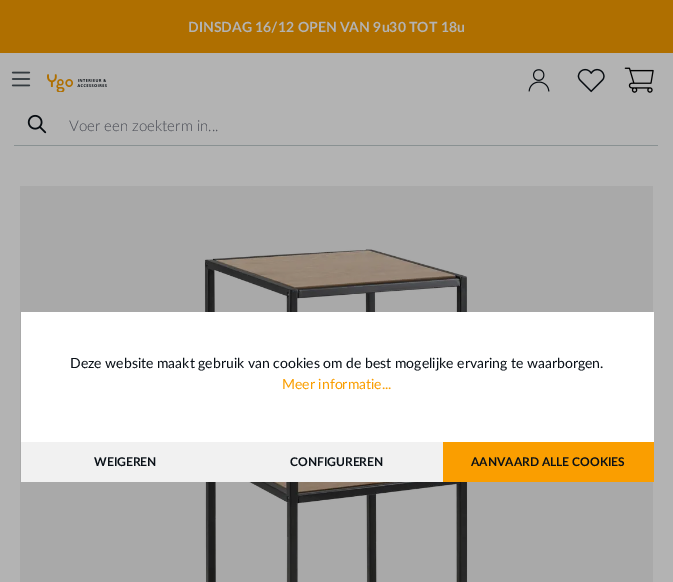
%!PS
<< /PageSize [673 582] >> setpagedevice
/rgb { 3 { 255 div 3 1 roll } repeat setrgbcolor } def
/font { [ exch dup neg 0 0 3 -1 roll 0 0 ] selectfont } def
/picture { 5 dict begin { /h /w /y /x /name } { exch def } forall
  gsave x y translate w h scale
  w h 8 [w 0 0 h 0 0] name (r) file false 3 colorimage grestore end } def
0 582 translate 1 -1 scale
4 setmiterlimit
179 179 179 rgb
0 0 673 582 rectfill
175 111 0 rgb
0 0 673 53 rectfill
(img/1.rgb) 47 74 60 18 picture
(img/2.rgb) 528 69 22 23 picture
(img/3.rgb) 577 68 28 25 picture
(img/4.rgb) 624 67 30 26 picture
(img/5.rgb) 11 71 20 16 picture
(img/6.rgb) 27 114 20 20 picture
137 145 146 rgb
14 145 644 1 rectfill
169 169 169 rgb
20 186 633 396 rectfill
(img/7.rgb) 204 249 264 333 picture
[
  [21 312 633 130 255 255 255]
  [21 442 422 40 241 241 241]
  [443 442 211 40 250 158 0]
] { aload pop rgb rectfill } forall
/Lato-Bold 14 font
179 179 179 rgb
188 32 moveto (DINSDAG 16/12 OPEN VAN 9u30 TOT 18u) show
/Lato-Light 15 font
71 74 83 rgb
69 131 moveto (Voer een zoekterm in...) show
/Lato-Regular 14 font
10 17 24 rgb
70 368 moveto (Deze website maakt gebruik van cookies om de best mogelijke ervaring te waarborgen.) show
250 158 0 rgb
282 389 moveto (Meer informatie...) show
/Lato-Bold 12 font
10 17 24 rgb
[
  [(WEIGEREN) 94 466]
  [(CONFIGUREREN) 290 466]
  [(AANVAARD ALLE COOKIES) 471 466]
] { aload pop moveto show } forall
showpage
